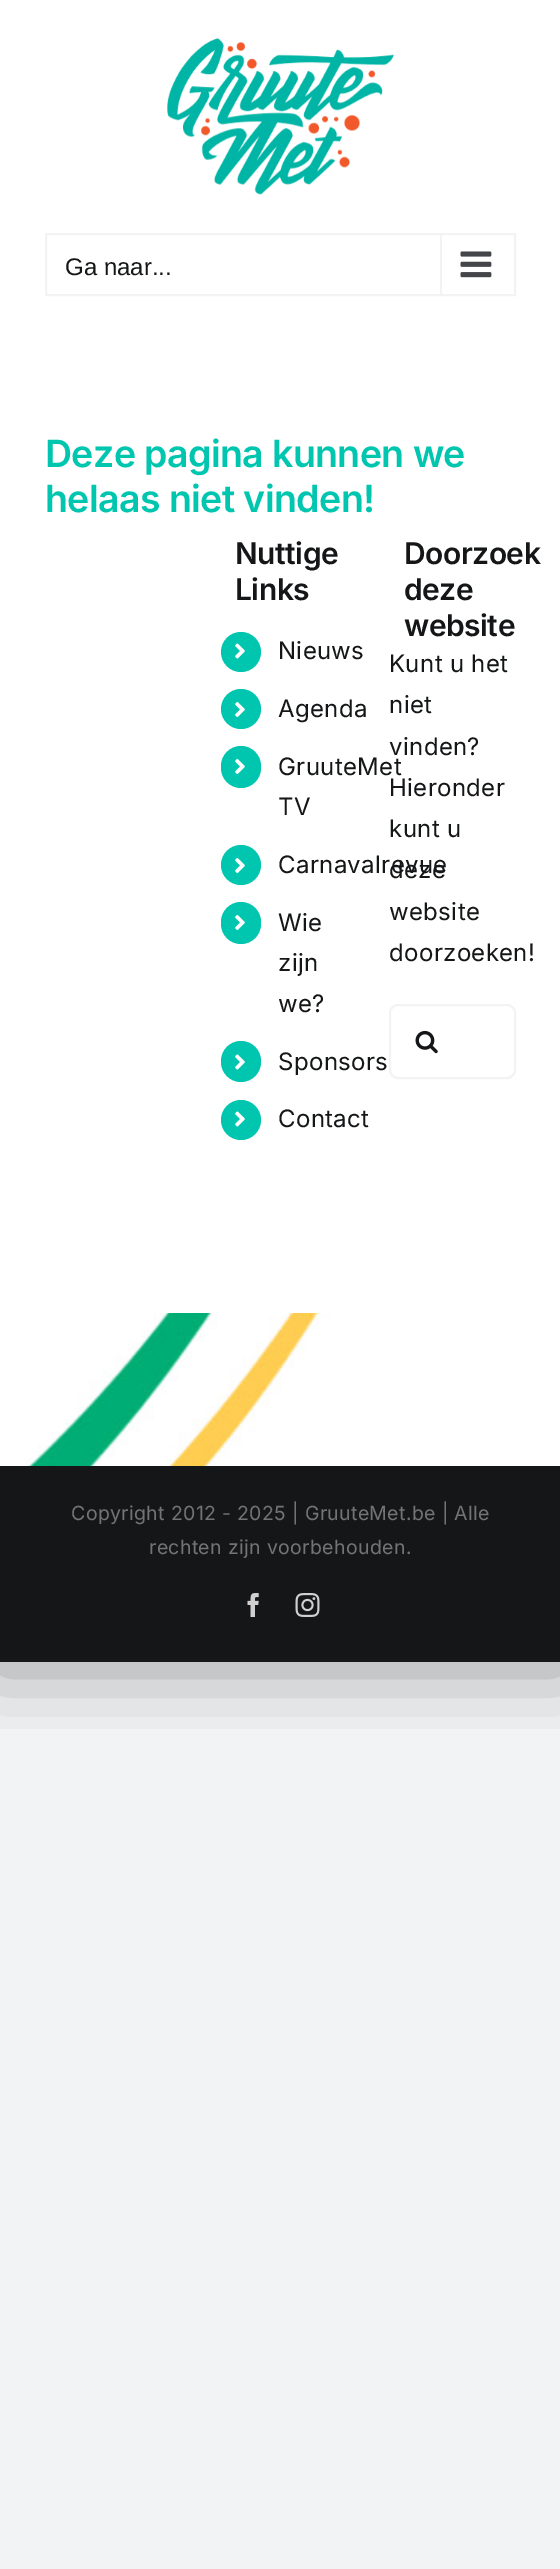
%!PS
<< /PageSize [560 2569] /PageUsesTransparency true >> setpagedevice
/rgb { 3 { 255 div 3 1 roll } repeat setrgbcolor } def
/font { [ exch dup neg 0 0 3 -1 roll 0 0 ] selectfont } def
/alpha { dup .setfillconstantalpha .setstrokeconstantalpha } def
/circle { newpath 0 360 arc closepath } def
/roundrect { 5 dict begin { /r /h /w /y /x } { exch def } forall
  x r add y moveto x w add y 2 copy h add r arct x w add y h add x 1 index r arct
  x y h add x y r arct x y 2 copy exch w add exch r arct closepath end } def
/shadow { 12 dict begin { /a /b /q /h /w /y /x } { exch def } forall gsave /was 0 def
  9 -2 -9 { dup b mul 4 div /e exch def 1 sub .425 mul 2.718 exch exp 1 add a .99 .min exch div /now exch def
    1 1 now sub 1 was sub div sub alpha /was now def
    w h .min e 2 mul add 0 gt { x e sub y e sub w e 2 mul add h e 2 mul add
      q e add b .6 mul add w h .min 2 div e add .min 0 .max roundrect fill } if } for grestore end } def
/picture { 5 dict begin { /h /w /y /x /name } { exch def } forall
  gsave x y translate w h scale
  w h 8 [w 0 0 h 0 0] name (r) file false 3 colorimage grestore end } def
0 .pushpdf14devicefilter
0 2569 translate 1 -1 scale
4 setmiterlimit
242 243 245 rgb
0 0 560 2569 rectfill
(img/1.rgb) 0 1313 560 153 picture
gsave
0 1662 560 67 rectclip
0 0 0 rgb
-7 -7 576 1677 0 37.5 0.35 shadow
grestore
255 255 255 rgb
0 0 560 1313 rectfill
(img/2.rgb) 167 38 228 157 picture
242 243 245 rgb
2 setlinewidth
46 234 469 61 rectstroke
440 234 2 60 rectfill
(img/3.rgb) 460 251 32 27 picture
0 197 175 rgb
241 652 20 circle fill
(img/4.rgb) 235 643 10 16 picture
241 709 20 circle fill
(img/5.rgb) 235 702 10 15 picture
221 746 40 42 20 roundrect fill
(img/5.rgb) 235 759 10 15 picture
241 865 20 circle fill
(img/5.rgb) 235 858 10 15 picture
221 902 40 42 20 roundrect fill
(img/5.rgb) 235 915 10 15 picture
221 1041 40 41 20 roundrect fill
(img/4.rgb) 235 1054 10 16 picture
241 1120 20 circle fill
(img/4.rgb) 235 1111 10 16 picture
242 243 245 rgb
390 1005 125 73 8 roundrect stroke
(img/6.rgb) 415 1030 23 24 picture
20 22 23 rgb
0 1466 560 196 rectfill
(img/7.rgb) 247 1593 12 24 picture
(img/8.rgb) 295 1593 25 24 picture
/LiberationSans-Regular 24 font
65 275 moveto (Ga naar...) show
/Inter-SemiBold 37.5 font
0 197 175 rgb
45 467 moveto -0.6 0 (Deze pagina kunnen we) ashow
45 512 moveto -0.6 0 (helaas niet vinden!) ashow
/Inter-SemiBold 30 font
20 22 23 rgb
235 564 moveto -0.5 0 (Nuttige) ashow
235 600 moveto -0.5 0 (Links) ashow
/Inter-Regular 24 font
278 659 moveto 0.35 0 (Nieuws) ashow
278 717 moveto 0.35 0 (Agenda) ashow
278 775 moveto 0.35 0 (GruuteMet) ashow
278 815 moveto 0.35 0 (TV) ashow
278 873 moveto 0.35 0 (Carnavalrevue) ashow
278 931 moveto 0.35 0 (Wie) ashow
278 971 moveto 0.35 0 (zijn) ashow
278 1012 moveto 0.35 0 (we?) ashow
278 1070 moveto 0.35 0 (Sponsors) ashow
278 1127 moveto 0.35 0 (Contact) ashow
/Inter-SemiBold 30 font
404 564 moveto -0.5 0 (Doorzoek) ashow
404 600 moveto -0.5 0 (deze) ashow
404 636 moveto -0.5 0 (website) ashow
/Inter-Regular 24 font
389 672 moveto 0.35 0 (Kunt u het) ashow
389 713 moveto 0.35 0 (niet) ashow
389 755 moveto 0.35 0 (vinden?) ashow
389 796 moveto 0.35 0 (Hieronder) ashow
389 837 moveto 0.35 0 (kunt u) ashow
389 878 moveto 0.35 0 (deze) ashow
389 920 moveto 0.35 0 (website) ashow
389 961 moveto 0.35 0 (doorzoeken!) ashow
/Inter-Regular 19.5 font
114 115 116 rgb
71 1520 moveto 0.35 0 (Copyright 2012 - 2025 | GruuteMet.be | Alle) ashow
149 1554 moveto 0.35 0 (rechten zijn voorbehouden.) ashow
.poppdf14devicefilter showpage
